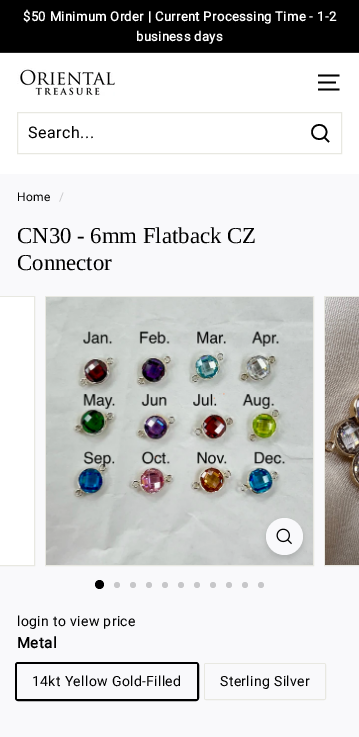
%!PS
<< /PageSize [359 737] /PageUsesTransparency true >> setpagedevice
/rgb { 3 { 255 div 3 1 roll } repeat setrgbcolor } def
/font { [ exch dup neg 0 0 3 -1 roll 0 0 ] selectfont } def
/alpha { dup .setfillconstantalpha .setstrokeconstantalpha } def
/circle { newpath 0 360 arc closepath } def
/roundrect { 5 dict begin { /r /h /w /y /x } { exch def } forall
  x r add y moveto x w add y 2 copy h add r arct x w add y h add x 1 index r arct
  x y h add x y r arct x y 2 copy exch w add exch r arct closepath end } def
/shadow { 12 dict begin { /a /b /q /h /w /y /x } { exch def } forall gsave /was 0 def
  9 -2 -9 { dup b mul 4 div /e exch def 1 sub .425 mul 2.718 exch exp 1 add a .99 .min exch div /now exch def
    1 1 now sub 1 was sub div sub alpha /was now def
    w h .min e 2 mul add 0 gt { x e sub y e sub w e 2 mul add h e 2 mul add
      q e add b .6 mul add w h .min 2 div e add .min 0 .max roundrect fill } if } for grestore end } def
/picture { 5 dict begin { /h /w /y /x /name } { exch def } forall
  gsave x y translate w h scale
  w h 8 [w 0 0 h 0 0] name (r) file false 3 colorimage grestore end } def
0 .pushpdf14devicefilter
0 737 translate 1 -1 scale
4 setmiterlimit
249 249 251 rgb
0 0 359 737 rectfill
[
  [0 0 359 52 0 0 0]
  [0 52 359 1 38 38 38]
  [0 53 359 121 255 255 255]
] { aload pop rgb rectfill } forall
(img/1.rgb) 17 68 98 28 picture
0 0 0 rgb
1.7 setlinewidth
318 75.5 moveto 339.5 75.5 lineto 318 82.5 moveto 336 82.5 lineto 318 89.5 moveto 339.5 89.5 lineto stroke
232 232 225 rgb
1 setlinewidth
17.5 112.5 324 41 rectstroke
0 0 0 rgb
1.6 setlinewidth
326.5 132 moveto 326.5 141.5 312 141.5 312 132 curveto 312 122.5 326.5 122.5 326.5 132 curveto closepath 329 142 moveto 324.5 137.5 lineto stroke
232 232 225 rgb
1 setlinewidth
-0.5 296.5 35 269 rectstroke
255 255 255 rgb
0 297 34 268 rectfill
232 232 225 rgb
45.5 296.5 268 269 rectstroke
(img/2.rgb) 46 297 267 268 picture
0 0 0 rgb
266 521 37 37 18.5 3 0.15 shadow
249 249 251 rgb
284.5 536.5 18.5 circle fill
(img/3.rgb) 276 528 16 17 picture
232 232 225 rgb
324.5 296.5 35 269 rectstroke
(img/4.rgb) 325 297 34 268 picture
0 0 0 rgb
99.5 584.5 4.5 circle fill
199 199 201 rgb
117 585 3 circle fill
133 585 3 circle fill
149 585 3 circle fill
165 585 3 circle fill
181 585 3 circle fill
197 585 3 circle fill
213 585 3 circle fill
229 585 3 circle fill
245 585 3 circle fill
261 585 3 circle fill
0 0 0 rgb
2 setlinewidth
16 663 182 37 2 roundrect stroke
249 249 251 rgb
17 664 180 35 1 roundrect fill
232 232 225 rgb
1 setlinewidth
204.5 663.5 121 36 1.5 roundrect stroke
249 249 251 rgb
205 664 120 35 1 roundrect fill
/Roboto-Bold 13 font
255 255 255 rgb
23 21 moveto 0.35 0 ($50 Minimum Order | Current Processing Time - 1-2) ashow
136 41 moveto 0.35 0 (business days) ashow
/Roboto-Regular 16 font
0 0 0 rgb
28 138 moveto 0.5 0 (Search...) ashow
/Roboto-Regular 12 font
17 201 moveto 0.35 0 (Home) ashow
199 199 201 rgb
59 201 moveto 0.35 0 (/) ashow
/LiberationSerif-Regular 22.75 font
0 0 0 rgb
17 243 moveto (CN30 - 6mm Flatback CZ) show
17 270 moveto (Connector) show
/Roboto-Regular 14 font
17 626 moveto 0.35 0 (login to view price) ashow
/Roboto-Bold 15 font
17 648 moveto 0.35 0 (Metal) ashow
/Roboto-Regular 14 font
32 686 moveto 0.35 0 (14kt Yellow Gold-Filled) ashow
220 686 moveto 0.35 0 (Sterling Silver) ashow
.poppdf14devicefilter showpage
